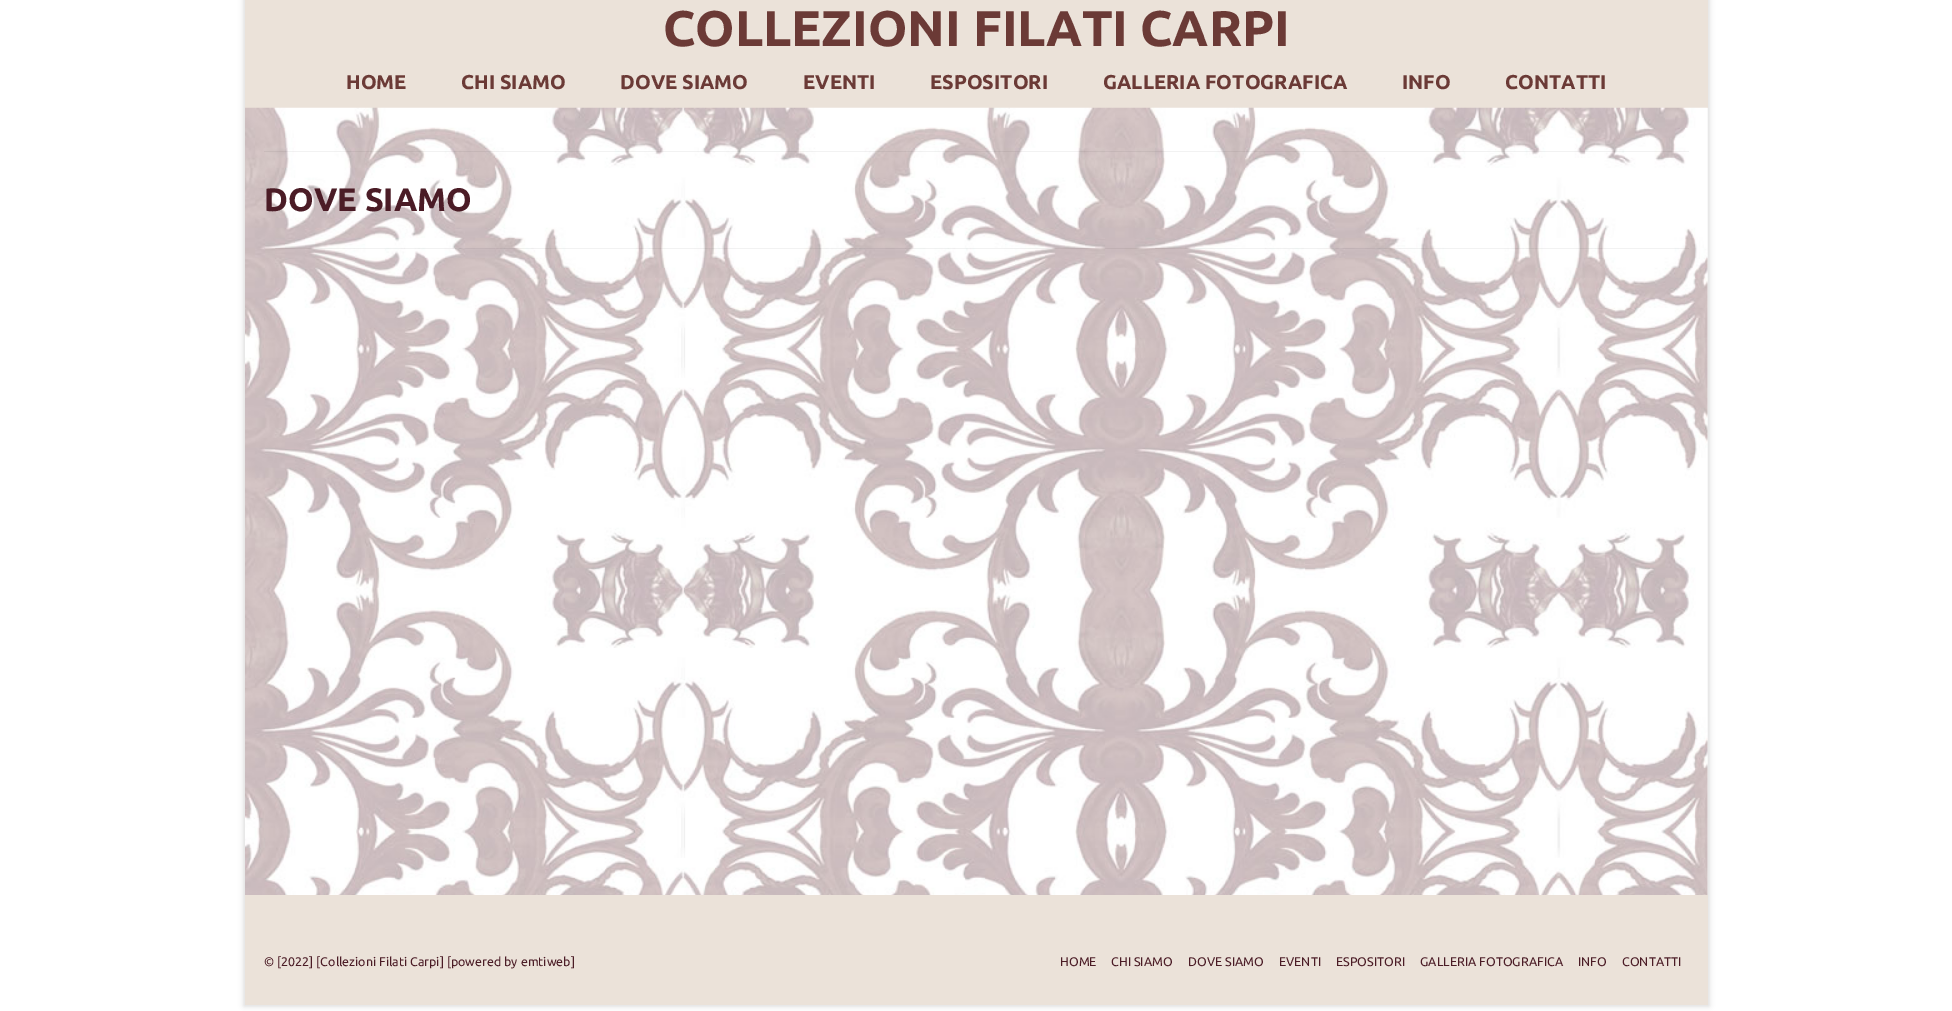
%!PS
<< /PageSize [1952 1011] /PageUsesTransparency true >> setpagedevice
/rgb { 3 { 255 div 3 1 roll } repeat setrgbcolor } def
/font { [ exch dup neg 0 0 3 -1 roll 0 0 ] selectfont } def
/alpha { dup .setfillconstantalpha .setstrokeconstantalpha } def
/roundrect { 5 dict begin { /r /h /w /y /x } { exch def } forall
  x r add y moveto x w add y 2 copy h add r arct x w add y h add x 1 index r arct
  x y h add x y r arct x y 2 copy exch w add exch r arct closepath end } def
/shadow { 12 dict begin { /a /b /q /h /w /y /x } { exch def } forall gsave /was 0 def
  9 -2 -9 { dup b mul 4 div /e exch def 1 sub .425 mul 2.718 exch exp 1 add a .99 .min exch div /now exch def
    1 1 now sub 1 was sub div sub alpha /was now def
    w h .min e 2 mul add 0 gt { x e sub y e sub w e 2 mul add h e 2 mul add
      q e add b .6 mul add w h .min 2 div e add .min 0 .max roundrect fill } if } for grestore end } def
/picture { 5 dict begin { /h /w /y /x /name } { exch def } forall
  gsave x y translate w h scale
  w h 8 [w 0 0 h 0 0] name (r) file false 3 colorimage grestore end } def
0 .pushpdf14devicefilter
0 1011 translate 1 -1 scale
4 setmiterlimit
255 255 255 rgb
0 0 1952 1011 rectfill
0 0 0 rgb
244 -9 1465 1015 0 3 0.16 shadow
235 226 217 rgb
245 0 1463 108 rectfill
(img/1.rgb) 245 107 1463 788 picture
0.05 alpha
[
  [264 151 1425 1 0 0 0]
  [264 248 1425 1 0 0 0]
] { aload pop rgb rectfill } forall
1 alpha
[
  [245 895 1463 110 235 226 217]
] { aload pop rgb rectfill } forall
/Ubuntu-Bold 50 font
107 58 54 rgb
663 46 moveto (COLLEZIONI FILATI CARPI) show
/Ubuntu-Bold 20 font
[
  [(HOME) 346 89]
  [(CHI SIAMO) 461 89]
  [(DOVE SIAMO) 620 89]
  [(EVENTI) 803 89]
  [(ESPOSITORI) 930 89]
  [(GALLERIA FOTOGRAFICA) 1103 89]
  [(INFO) 1402 89]
  [(CONTATTI) 1505 89]
] { aload pop moveto show } forall
/Ubuntu-Bold 32.5 font
75 28 38 rgb
264 211 moveto (DOVE SIAMO) show
/Ubuntu-Regular 12.5 font
[
  [(© [2022] [Collezioni Filati Carpi] [powered by emtiweb]) 264 966]
  [(HOME) 1060 966]
  [(CHI SIAMO) 1111 966]
  [(DOVE SIAMO) 1188 966]
  [(EVENTI) 1279 966]
  [(ESPOSITORI) 1336 966]
  [(GALLERIA FOTOGRAFICA) 1420 966]
  [(INFO) 1578 966]
  [(CONTATTI) 1622 966]
] { aload pop moveto show } forall
.poppdf14devicefilter showpage
